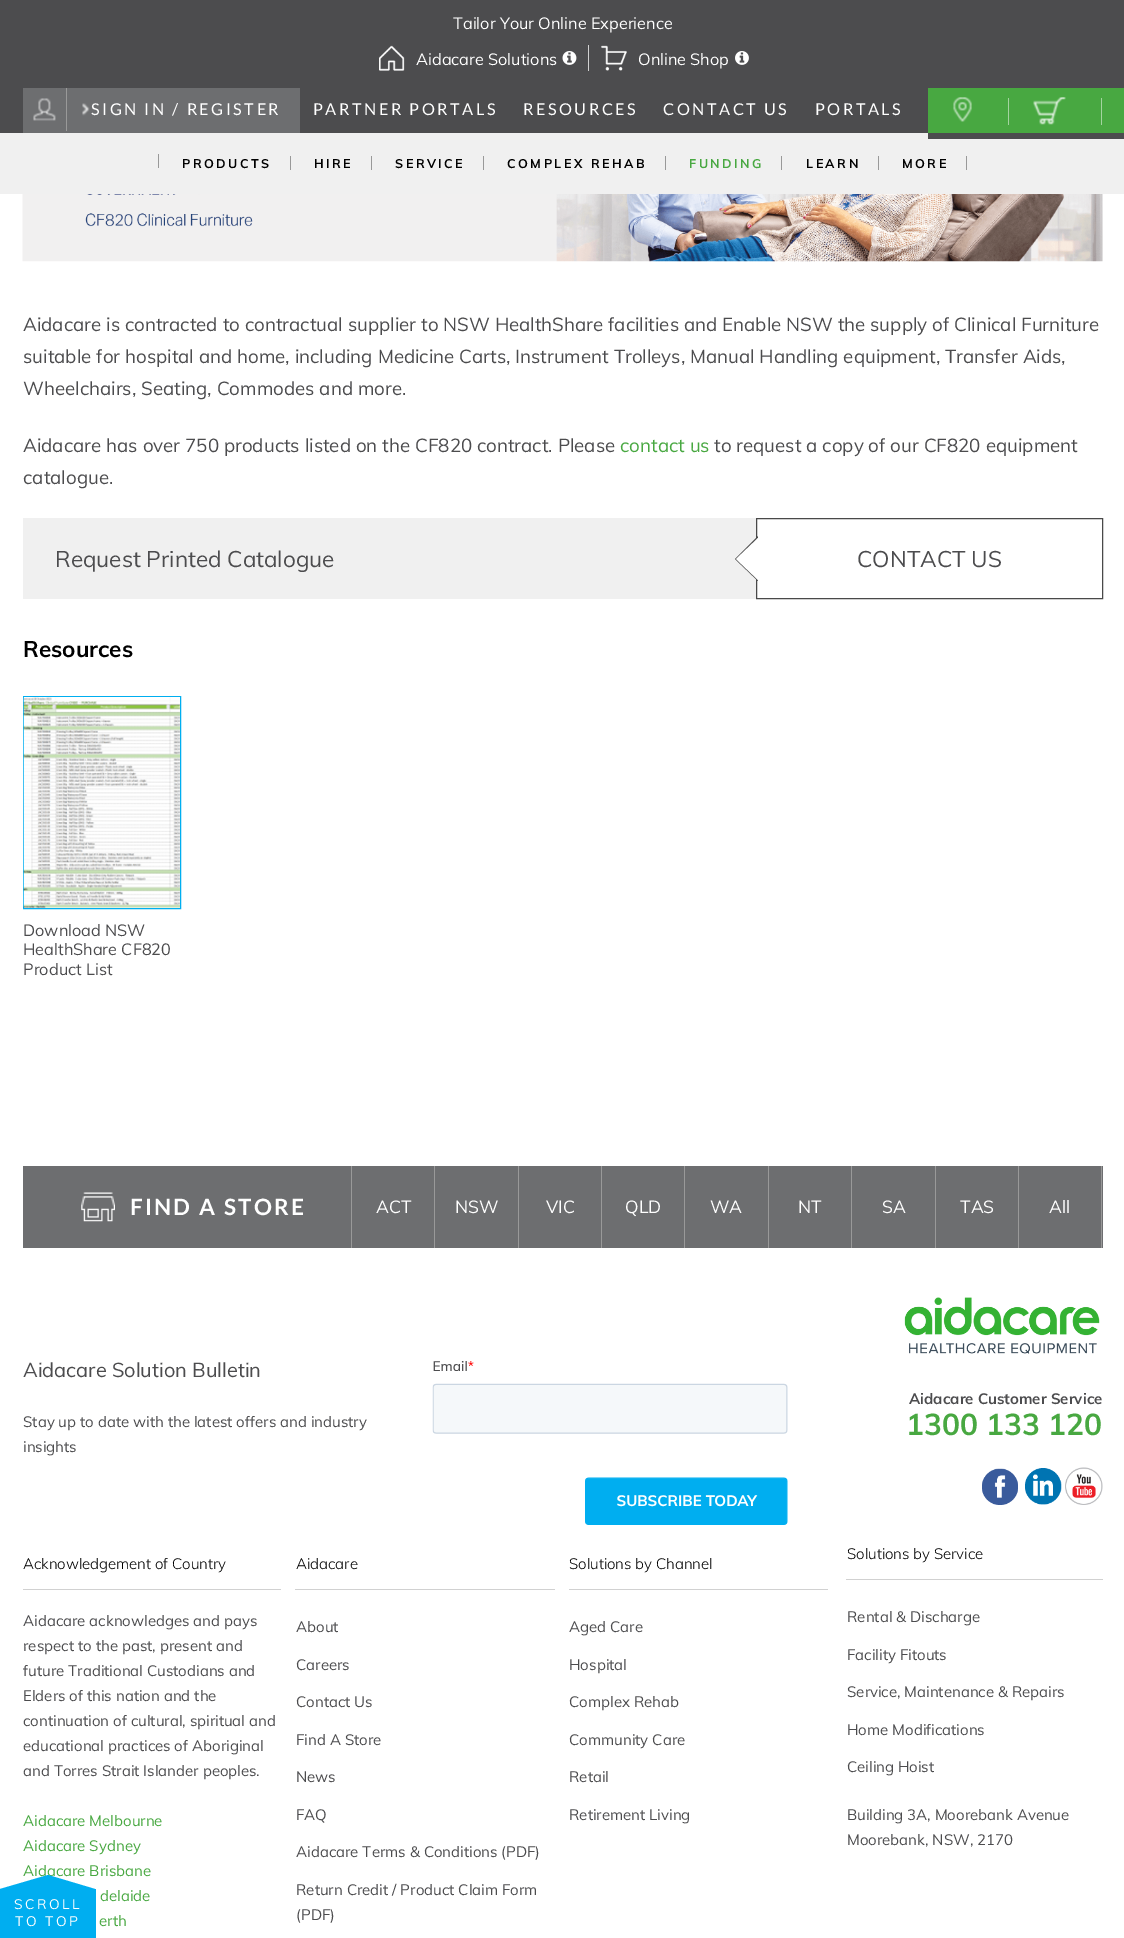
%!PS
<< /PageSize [1124 1938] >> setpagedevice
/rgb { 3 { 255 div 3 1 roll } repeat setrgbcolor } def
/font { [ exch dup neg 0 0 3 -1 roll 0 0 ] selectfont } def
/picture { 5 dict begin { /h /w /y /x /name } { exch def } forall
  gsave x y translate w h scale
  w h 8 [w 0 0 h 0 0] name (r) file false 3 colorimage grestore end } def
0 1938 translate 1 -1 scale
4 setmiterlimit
255 255 255 rgb
0 0 1124 1938 rectfill
76 76 78 rgb
0 0 1124 88 rectfill
209 209 209 rgb
588 45 1 26 rectfill
(img/1.rgb) 379 45 26 26 picture
(img/2.rgb) 562 51 15 14 picture
(img/3.rgb) 601 45 26 26 picture
(img/4.rgb) 735 51 14 14 picture
76 76 78 rgb
0 88 928 45 rectfill
109 110 112 rgb
23 88 277 45 rectfill
(img/5.rgb) 82 103 8 13 picture
(img/6.rgb) 33 98 23 23 picture
[
  [66 88 1 43 153 153 153]
  [928 88 196 45 72 168 65]
  [1008 98 1 27 164 212 160]
] { aload pop rgb rectfill } forall
(img/7.rgb) 953 97 19 25 picture
1101 98 1 27 rectfill
(img/8.rgb) 1033 97 33 28 picture
[
  [0 133 1124 61 240 240 240]
  [928 133 196 6 76 76 78]
  [158 154 1 14 153 153 153]
  [290 156 1 14 153 153 153]
  [371 156 1 14 153 153 153]
  [483 156 1 14 153 153 153]
  [665 156 1 14 153 153 153]
  [781 156 1 14 153 153 153]
  [878 156 1 14 153 153 153]
  [966 156 1 14 153 153 153]
] { aload pop rgb rectfill } forall
(img/9.rgb) 22 194 1081 68 picture
240 240 240 rgb
23 518 733 81 rectfill
73 73 73 rgb
756.5 518.5 346 80 rectstroke
758 536 moveto 758 581 lineto 735 559 lineto closepath fill
255 255 255 rgb
758 538 moveto 758 580 lineto 736 559 lineto closepath fill
0 174 240 rgb
23.5 696.5 157 212 rectstroke
(img/10.rgb) 23 697 157 211 picture
109 110 112 rgb
23 1166 411 82 rectfill
153 153 153 rgb
351 1166 1 82 rectfill
(img/11.rgb) 81 1192 34 30 picture
[
  [434 1166 1 82 153 153 153]
  [435 1166 83 82 109 110 112]
  [518 1166 1 82 153 153 153]
  [519 1166 165 82 109 110 112]
  [601 1166 1 82 153 153 153]
  [684 1166 1 82 153 153 153]
  [685 1166 83 82 109 110 112]
  [768 1166 1 82 153 153 153]
  [769 1166 166 82 109 110 112]
  [851 1166 1 82 153 153 153]
  [935 1166 1 82 153 153 153]
  [936 1166 82 82 109 110 112]
  [1018 1166 1 82 153 153 153]
  [1019 1166 84 82 109 110 112]
  [1101 1166 1 82 153 153 153]
] { aload pop rgb rectfill } forall
(img/12.rgb) 432 1361 356 164 picture
[
  [23 1589 258 1 209 209 209]
  [295 1589 260 1 209 209 209]
  [569 1589 259 1 209 209 209]
] { aload pop rgb rectfill } forall
(img/13.rgb) 904 1297 196 57 picture
(img/14.rgb) 982 1468 36 37 picture
(img/15.rgb) 1025 1468 37 37 picture
(img/16.rgb) 1065 1467 38 38 picture
846 1579 257 1 rectfill
0 174 240 rgb
0 1889 96 49 rectfill
/Muli-Regular 16.25 font
255 255 255 rgb
[
  [(Tailor Your Online Experience) 453 29]
  [(Aidacare Solutions) 416 65]
  [(Online Shop) 638 65]
] { aload pop moveto show } forall
/Lato-Regular 16.25 font
91 115 moveto 2.5 0 (SIGN IN / REGISTER) ashow
313 115 moveto 2.5 0 (PARTNER PORTALS) ashow
523 115 moveto 2.5 0 (RESOURCES) ashow
663 115 moveto 2.5 0 (CONTACT US) ashow
815 115 moveto 2.5 0 (PORTALS) ashow
/Muli-Bold 12.5 font
0 0 0 rgb
182 168 moveto 2.5 0 (PRODUCTS) ashow
314 168 moveto 2.5 0 (HIRE) ashow
395 168 moveto 2.5 0 (SERVICE) ashow
507 168 moveto 2.5 0 (COMPLEX REHAB) ashow
72 168 65 rgb
689 168 moveto 2.5 0 (FUNDING) ashow
0 0 0 rgb
806 168 moveto 2.5 0 (LEARN) ashow
902 168 moveto 2.5 0 (MORE) ashow
/Muli-Regular 18.75 font
76 76 78 rgb
[
  [(Aidacare is contracted to contractual supplier to NSW HealthShare facilities and Enable NSW the supply of Clinical Furniture) 23 331]
  [(suitable for hospital and home, including Medicine Carts, Instrument Trolleys, Manual Handling equipment, Transfer Aids,) 23 363]
  [(Wheelchairs, Seating, Commodes and more.) 23 395]
  [(Aidacare has over 750 products listed on the CF820 contract. Please) 23 452]
] { aload pop moveto show } forall
72 168 65 rgb
620 452 moveto (contact us) show
76 76 78 rgb
714 452 moveto (to request a copy of our CF820 equipment) show
23 484 moveto (catalogue.) show
/Muli-Regular 22.5 font
55 567 moveto (Request Printed Catalogue) show
857 567 moveto (CONTACT US) show
/Muli-Bold 22.5 font
0 0 0 rgb
23 657 moveto (Resources) show
/Muli-Regular 16.25 font
76 76 78 rgb
[
  [(Download NSW) 23 936]
  [(HealthShare CF820) 23 955]
  [(Product List) 23 975]
] { aload pop moveto show } forall
/Lato-Bold 22.5 font
255 255 255 rgb
130 1215 moveto 2.25 0 (FIND A STORE) ashow
/Muli-Regular 17.5 font
[
  [(ACT) 376 1213]
  [(NSW) 455 1213]
  [(VIC) 546 1213]
  [(QLD) 625 1213]
  [(WA) 710 1213]
  [(NT) 798 1213]
  [(SA) 882 1213]
  [(TAS) 960 1213]
  [(All) 1049 1213]
] { aload pop moveto show } forall
/Muli-Regular 20 font
76 76 78 rgb
23 1377 moveto (Aidacare Solution Bulletin) show
/Muli-Regular 15 font
23 1427 moveto (Stay up to date with the latest offers and industry) show
23 1452 moveto (insights) show
/Muli-Light 15 font
0 0 0 rgb
23 1569 moveto (Acknowledgement of Country) show
/Muli-Regular 15 font
76 76 78 rgb
[
  [(Aidacare acknowledges and pays) 23 1626]
  [(respect to the past, present and) 23 1651]
  [(future Traditional Custodians and) 23 1676]
  [(Elders of this nation and the) 23 1701]
  [(continuation of cultural, spiritual and) 23 1726]
  [(educational practices of Aboriginal) 23 1751]
  [(and Torres Strait Islander peoples.) 23 1776]
] { aload pop moveto show } forall
72 168 65 rgb
[
  [(Aidacare Melbourne) 23 1826]
  [(Aidacare Sydney) 23 1851]
  [(Aidacare Brisbane) 23 1876]
  [(delaide) 100 1901]
  [(erth) 99 1926]
] { aload pop moveto show } forall
/Muli-Light 15 font
0 0 0 rgb
296 1569 moveto (Aidacare) show
/Muli-Regular 15 font
76 76 78 rgb
[
  [(About) 296 1632]
  [(Careers) 296 1670]
  [(Contact Us) 296 1707]
  [(Find A Store) 296 1745]
  [(News) 296 1782]
  [(FAQ) 296 1820]
  [(Aidacare Terms & Conditions \(PDF\)) 296 1857]
  [(Return Credit / Product Claim Form) 296 1895]
  [(\(PDF\)) 296 1920]
] { aload pop moveto show } forall
/Muli-Light 15 font
0 0 0 rgb
569 1569 moveto (Solutions by Channel) show
/Muli-Regular 15 font
76 76 78 rgb
[
  [(Aged Care) 569 1632]
  [(Hospital) 569 1670]
  [(Complex Rehab) 569 1707]
  [(Community Care) 569 1745]
  [(Retail) 569 1782]
  [(Retirement Living) 569 1820]
] { aload pop moveto show } forall
/Muli-Bold 15 font
909 1404 moveto (Aidacare Customer Service) show
/Muli-Bold 30 font
72 168 65 rgb
906 1435 moveto (1300 133 120) show
/Muli-Light 15 font
0 0 0 rgb
847 1559 moveto (Solutions by Service) show
/Muli-Regular 15 font
76 76 78 rgb
[
  [(Rental & Discharge) 847 1622]
  [(Facility Fitouts) 847 1660]
  [(Service, Maintenance & Repairs) 847 1697]
  [(Home Modifications) 847 1735]
  [(Ceiling Hoist) 847 1772]
  [(Building 3A, Moorebank Avenue) 847 1820]
  [(Moorebank, NSW, 2170) 847 1845]
] { aload pop moveto show } forall
0 174 240 rgb
95 1889 moveto 0 1889 lineto 48 1875 lineto closepath fill
/Muli-Regular 13.75 font
255 255 255 rgb
14 1909 moveto 2.5 0 (SCROLL) ashow
15 1926 moveto 2.5 0 (TO TOP) ashow
showpage
